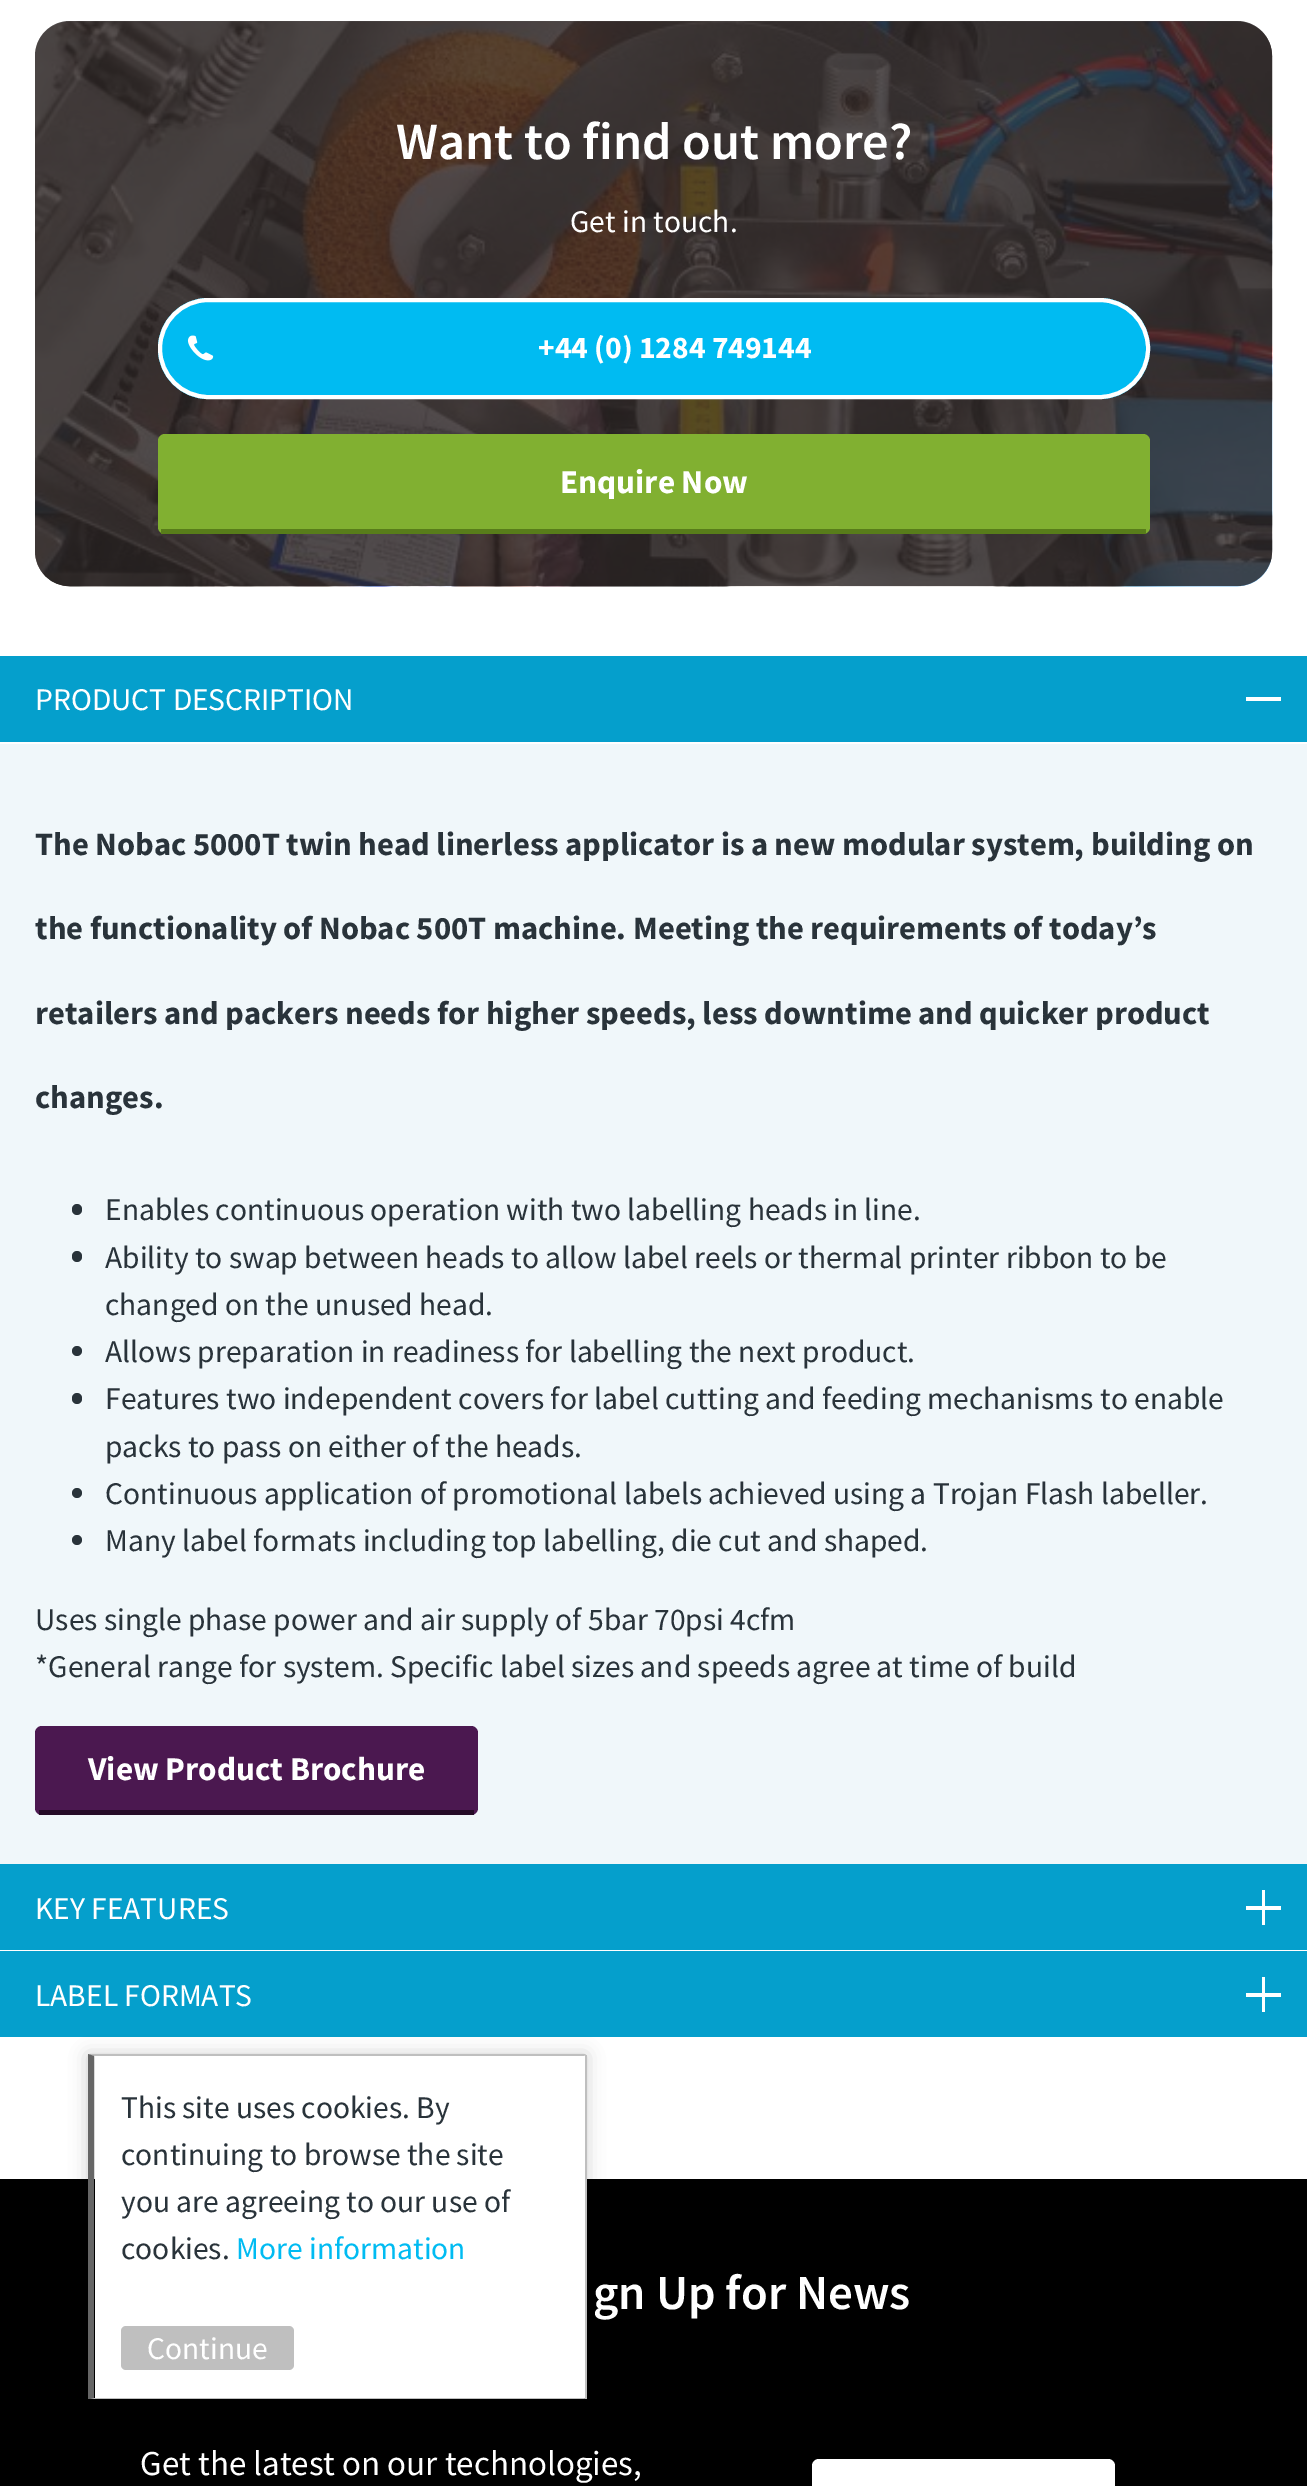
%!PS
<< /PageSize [1307 2486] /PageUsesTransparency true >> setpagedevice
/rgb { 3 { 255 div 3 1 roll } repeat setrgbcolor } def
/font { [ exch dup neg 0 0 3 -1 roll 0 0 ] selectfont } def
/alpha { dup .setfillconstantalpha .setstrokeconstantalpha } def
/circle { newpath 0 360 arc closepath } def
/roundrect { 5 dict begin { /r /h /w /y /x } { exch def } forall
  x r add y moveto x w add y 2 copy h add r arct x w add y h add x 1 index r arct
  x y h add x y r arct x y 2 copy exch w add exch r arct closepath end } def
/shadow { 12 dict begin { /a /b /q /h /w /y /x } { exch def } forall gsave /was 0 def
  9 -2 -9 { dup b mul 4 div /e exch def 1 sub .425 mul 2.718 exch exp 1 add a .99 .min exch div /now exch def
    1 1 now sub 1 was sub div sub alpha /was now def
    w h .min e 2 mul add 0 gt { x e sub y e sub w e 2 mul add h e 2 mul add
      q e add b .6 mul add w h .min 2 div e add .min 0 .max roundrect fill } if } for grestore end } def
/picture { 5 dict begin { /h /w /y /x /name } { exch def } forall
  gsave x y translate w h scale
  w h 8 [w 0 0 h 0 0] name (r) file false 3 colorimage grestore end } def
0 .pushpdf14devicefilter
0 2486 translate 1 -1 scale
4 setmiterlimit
255 255 255 rgb
0 0 1307 2486 rectfill
(img/1.rgb) 35 21 1238 566 picture
0.8 alpha
45 39 39 rgb
35 21 1237 565 35 roundrect fill
1 alpha
0 187 242 rgb
158 298 992 101 50.5 roundrect fill
(img/2.rgb) 187 335 27 26 picture
255 255 255 rgb
4 setlinewidth
160 300 988 97 48.5 roundrect stroke
129 176 49 rgb
158 434 992 100 7 roundrect fill
[
  [161 529 985 5 88 125 26]
  [0 744 1307 1120 240 247 250]
  [0 656 1307 86 5 159 204]
  [1246 697 35 4 255 255 255]
] { aload pop rgb rectfill } forall
41 51 58 rgb
72 1204 10 11 5 roundrect fill
72 1251 10 11 5 roundrect fill
77 1351 5 circle fill
72 1393 10 11 5 roundrect fill
77 1493 5 circle fill
77 1540 5 circle fill
75 24 80 rgb
35 1726 443 89 7 roundrect fill
[
  [39 1810 435 5 36 11 38]
  [0 1864 1307 86 5 159 204]
  [1246 1906 35 4 255 255 255]
  [1262 1890 3 35 255 255 255]
  [0 1951 1307 86 5 159 204]
  [1246 1993 35 4 255 255 255]
  [1262 1977 3 35 255 255 255]
  [0 2179 1307 307 0 0 0]
] { aload pop rgb rectfill } forall
88 2055 498 344 0 9 0.2 shadow
255 255 255 rgb
95 2056 490 342 rectfill
191 191 191 rgb
88 2054 moveto 586 2054 lineto 584 2056 lineto 94 2056 lineto closepath fill
585 2055 2 344 rectfill
586 2399 moveto 88 2399 lineto 94 2398 lineto 584 2398 lineto closepath fill
102 102 102 rgb
88 2399 moveto 88 2054 lineto 94 2056 lineto 94 2398 lineto closepath fill
191 191 191 rgb
121 2326 173 44 5 roundrect fill
255 255 255 rgb
812 2459 303 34 7 roundrect fill
/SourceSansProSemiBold-SemiBold 52.5 font
396 159 moveto (Want to find out more?) show
/SourceSansPro-Regular 31.5 font
570 232 moveto (Get in touch.) show
/SourceSansPro-Bold 31.5 font
538 358 moveto (+44 \(0\) 1284 749144) show
/SourceSansPro-Bold 33.25 font
560 493 moveto (Enquire Now) show
/SourceSansPro-Regular 31.5 font
35 710 moveto (PRODUCT DESCRIPTION) show
/SourceSansPro-Bold 32.65 font
41 51 58 rgb
[
  [(The Nobac 5000T twin head linerless applicator is a new modular system, building on) 35 855]
  [(the functionality of Nobac 500T machine. Meeting the requirements of today’s) 35 939]
  [(retailers and packers needs for higher speeds, less downtime and quicker product) 35 1024]
  [(changes.) 35 1108]
] { aload pop moveto show } forall
/SourceSansPro-Regular 31.5 font
[
  [(Enables continuous operation with two labelling heads in line.) 105 1220]
  [(Ability to swap between heads to allow label reels or thermal printer ribbon to be) 105 1268]
  [(changed on the unused head.) 105 1315]
  [(Allows preparation in readiness for labelling the next product.) 105 1362]
  [(Features two independent covers for label cutting and feeding mechanisms to enable) 105 1409]
  [(packs to pass on either of the heads.) 105 1457]
  [(Continuous application of promotional labels achieved using a Trojan Flash labeller.) 105 1504]
  [(Many label formats including top labelling, die cut and shaped.) 105 1551]
  [(Uses single phase power and air supply of 5bar 70psi 4cfm) 35 1630]
  [(*General range for system. Specific label sizes and speeds agree at time of build) 35 1677]
] { aload pop moveto show } forall
/SourceSansPro-Bold 33.25 font
255 255 255 rgb
88 1780 moveto (View Product Brochure) show
/SourceSansPro-Regular 31.5 font
35 1919 moveto (KEY FEATURES) show
35 2006 moveto (LABEL FORMATS) show
41 51 58 rgb
[
  [(This site uses cookies. By) 121 2118]
  [(continuing to browse the site) 121 2165]
  [(you are agreeing to our use of) 121 2212]
  [(cookies.) 121 2259]
] { aload pop moveto show } forall
0 187 242 rgb
236 2259 moveto (More information) show
255 255 255 rgb
147 2359 moveto (Continue) show
/SourceSansProSemiBold-SemiBold 49 font
593 2309 moveto (gn Up for News) show
/SourceSansPro-Regular 35 font
140 2475 moveto (Get the latest on our technologies,) show
.poppdf14devicefilter showpage
